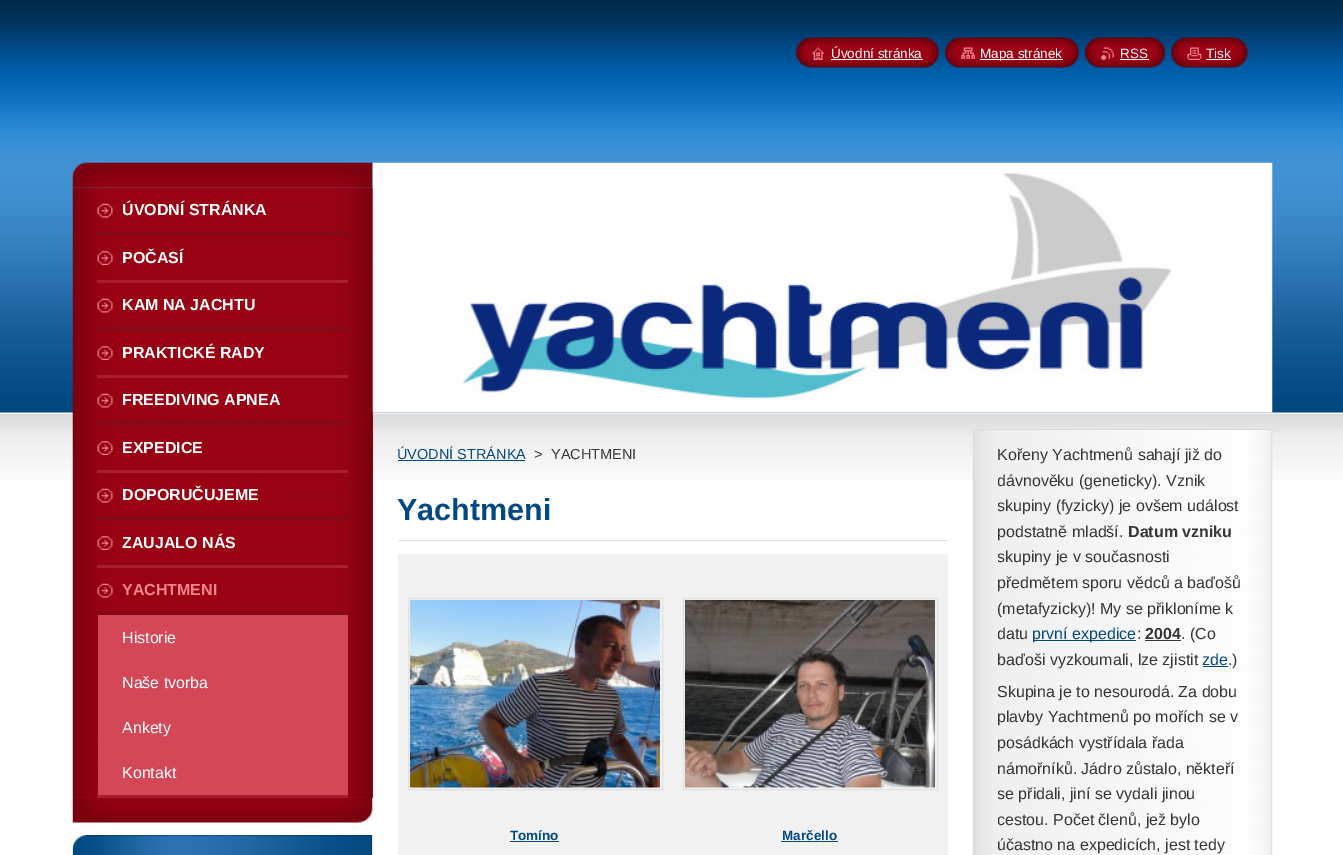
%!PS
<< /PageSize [1343 855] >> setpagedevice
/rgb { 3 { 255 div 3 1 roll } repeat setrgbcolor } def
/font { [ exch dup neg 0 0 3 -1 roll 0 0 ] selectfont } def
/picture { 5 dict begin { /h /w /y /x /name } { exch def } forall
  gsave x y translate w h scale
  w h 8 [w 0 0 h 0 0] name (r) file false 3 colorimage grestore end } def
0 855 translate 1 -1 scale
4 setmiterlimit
255 255 255 rgb
0 0 1343 855 rectfill
(img/1.rgb) 0 0 1343 480 picture
(img/2.rgb) 796 37 17 31 picture
(img/3.rgb) 812 37 127 31 picture
(img/4.rgb) 812 47 12 13 picture
831 59 92 1 rectfill
(img/5.rgb) 945 37 17 31 picture
(img/6.rgb) 961 37 118 31 picture
(img/7.rgb) 961 47 14 12 picture
980 59 83 1 rectfill
(img/8.rgb) 1085 37 17 31 picture
(img/9.rgb) 1101 37 64 31 picture
(img/10.rgb) 1101 47 13 13 picture
1120 59 29 1 rectfill
(img/2.rgb) 1171 37 17 31 picture
(img/11.rgb) 1187 37 61 31 picture
(img/12.rgb) 1187 47 15 13 picture
1206 59 25 1 rectfill
(img/13.rgb) 72 162 301 26 picture
(img/14.rgb) 72 797 301 26 picture
157 2 20 rgb
73 188 300 610 rectfill
(img/15.rgb) 72 187 301 611 picture
129 10 25 rgb
97 232 251 3 rectfill
(img/16.rgb) 97 203 16 15 picture
170 29 46 rgb
97 280 251 3 rectfill
(img/17.rgb) 97 251 16 14 picture
129 10 25 rgb
97 327 251 3 rectfill
(img/18.rgb) 97 298 16 15 picture
170 29 46 rgb
97 375 251 3 rectfill
(img/19.rgb) 97 346 16 14 picture
129 10 25 rgb
97 422 251 3 rectfill
(img/20.rgb) 97 393 16 15 picture
170 29 46 rgb
97 470 251 3 rectfill
(img/21.rgb) 97 441 16 14 picture
129 10 25 rgb
97 517 251 3 rectfill
(img/22.rgb) 97 488 16 15 picture
170 29 46 rgb
97 565 251 3 rectfill
(img/23.rgb) 97 536 16 14 picture
97 795 251 3 rectfill
(img/24.rgb) 97 583 16 15 picture
129 10 25 rgb
97 612 251 3 rectfill
211 71 87 rgb
98 615 250 180 rectfill
(img/25.rgb) 72 835 301 20 picture
(img/26.rgb) 372 162 901 251 picture
[
  [398 460 127 1 2 73 129]
  [398 540 550 1 225 225 225]
  [398 554 550 301 241 241 241]
] { aload pop rgb rectfill } forall
225 225 225 rgb
408.5 598.5 254 191 rectstroke
(img/27.rgb) 410 600 250 188 picture
2 73 129 rgb
510 841 49 1 rectfill
225 225 225 rgb
683.5 598.5 254 191 rectstroke
(img/28.rgb) 685 600 250 188 picture
2 73 129 rgb
781 841 57 1 rectfill
(img/29.rgb) 972 429 301 426 picture
[
  [973 429 300 1 219 219 219]
  [1033 640 103 1 2 73 129]
  [1145 640 36 1 54 54 54]
  [1203 666 25 1 2 73 129]
] { aload pop rgb rectfill } forall
/LiberationSans-Regular 13.5 font
255 255 255 rgb
[
  [(Úvodní stránka) 831 58]
  [(Mapa stránek) 980 58]
  [(RSS) 1120 58]
  [(Tisk) 1206 58]
] { aload pop moveto show } forall
/LiberationSans-Bold 16 font
[
  [(ÚVODNÍ STRÁNKA) 122 215]
  [(POČASÍ) 122 263]
  [(KAM NA JACHTU) 122 310]
  [(PRAKTICKÉ RADY) 122 358]
  [(FREEDIVING APNEA) 122 405]
  [(EXPEDICE) 122 453]
  [(DOPORUČUJEME) 122 500]
  [(ZAUJALO NÁS) 122 548]
] { aload pop moveto show } forall
243 132 145 rgb
122 595 moveto (YACHTMENI) show
/LiberationSans-Regular 16 font
255 255 255 rgb
[
  [(Historie) 122 643]
  [(Naše tvorba) 122 688]
  [(Ankety) 122 733]
  [(Kontakt) 122 778]
] { aload pop moveto show } forall
/LiberationSans-Regular 14.5 font
2 73 129 rgb
397 459 moveto (ÚVODNÍ STRÁNKA) show
54 54 54 rgb
534 459 moveto (>) show
551 459 moveto (YACHTMENI) show
/LiberationSans-Bold 30.5 font
2 73 129 rgb
397 520 moveto (Yachtmeni) show
/LiberationSans-Bold 13.5 font
510 840 moveto (Tomíno) show
782 840 moveto (Marčello) show
/LiberationSans-Regular 16 font
54 54 54 rgb
997 460 moveto (Kořeny Yachtmenů sahají již do) show
gsave
998 430 250 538 rectclip
997 486 moveto (dávnověku \(geneticky\). Vznik) show
997 511 moveto (skupiny \(fyzicky\) je ovšem událost) show
grestore
997 537 moveto (podstatně mladší.) show
/LiberationSans-Bold 16 font
1128 537 moveto (Datum vzniku) show
gsave
998 430 250 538 rectclip
/LiberationSans-Regular 16 font
997 562 moveto (skupiny je v současnosti) show
grestore
/LiberationSans-Regular 16 font
997 588 moveto (předmětem sporu vědců a baďošů) show
997 614 moveto (\(metafyzicky\)! My se přikloníme k) show
gsave
998 430 250 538 rectclip
997 639 moveto (datu) show
grestore
2 73 129 rgb
1032 639 moveto (první expedice) show
54 54 54 rgb
1137 639 moveto (:) show
/LiberationSans-Bold 16 font
1145 639 moveto (2004) show
/LiberationSans-Regular 16 font
1181 639 moveto (. \(Co) show
997 665 moveto (baďoši vyzkoumali, lze zjistit) show
2 73 129 rgb
1202 665 moveto (zde) show
54 54 54 rgb
[
  [(.\)) 1228 665]
  [(Skupina je to nesourodá. Za dobu) 997 697]
  [(plavby Yachtmenů po mořích se v) 997 722]
  [(posádkách vystřídala řada) 997 748]
  [(námořníků. Jádro zůstalo, někteří) 997 774]
] { aload pop moveto show } forall
gsave
998 430 250 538 rectclip
997 799 moveto (se přidali, jiní se vydali jinou) show
997 825 moveto (cestou. Počet členů, jež bylo) show
grestore
997 850 moveto (účastno na expedicích, jest tedy) show
showpage
